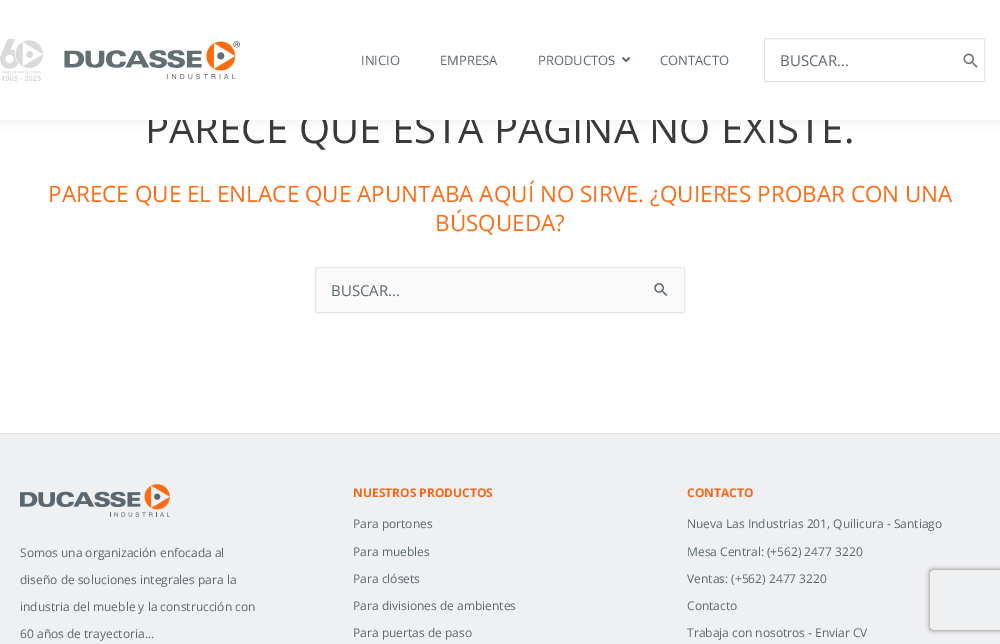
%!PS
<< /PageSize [1000 644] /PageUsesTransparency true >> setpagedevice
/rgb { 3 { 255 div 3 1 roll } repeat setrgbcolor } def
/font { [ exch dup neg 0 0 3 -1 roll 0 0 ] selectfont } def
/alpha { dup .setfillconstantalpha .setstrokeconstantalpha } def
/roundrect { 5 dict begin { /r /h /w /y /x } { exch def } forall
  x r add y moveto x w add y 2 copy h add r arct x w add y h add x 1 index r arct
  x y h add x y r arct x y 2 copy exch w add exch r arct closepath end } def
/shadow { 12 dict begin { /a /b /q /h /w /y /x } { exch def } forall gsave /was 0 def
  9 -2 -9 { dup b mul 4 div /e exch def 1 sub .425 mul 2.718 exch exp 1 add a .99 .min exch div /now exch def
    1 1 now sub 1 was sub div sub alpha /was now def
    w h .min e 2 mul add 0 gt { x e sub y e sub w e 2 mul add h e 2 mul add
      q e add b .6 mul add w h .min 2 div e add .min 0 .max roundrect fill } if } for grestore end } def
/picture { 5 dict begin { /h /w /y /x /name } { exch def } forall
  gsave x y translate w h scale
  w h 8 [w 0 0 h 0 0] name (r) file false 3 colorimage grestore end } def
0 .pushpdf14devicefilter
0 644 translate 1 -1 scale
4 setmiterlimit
255 255 255 rgb
0 0 1000 644 rectfill
36 50 66 rgb
0 2 1000 120 0 5 0.07 shadow
250 250 250 rgb
315.5 267.5 369 45 1.5 roundrect gsave fill grestore
229 229 229 rgb
stroke
(img/4.rgb) 654 283 14 13 picture
239 240 242 rgb
0 434 1000 210 rectfill
226 228 230 rgb
0 433 1000 1 rectfill
(img/5.rgb) 20 484 150 33 picture
gsave
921 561 moveto 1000 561 lineto 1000 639 lineto 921 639 lineto closepath 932 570 moveto 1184 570 lineto 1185 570 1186 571 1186 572 curveto 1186 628 lineto 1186 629 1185 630 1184 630 curveto 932 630 lineto 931 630 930 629 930 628 curveto 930 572 lineto 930 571 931 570 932 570 curveto closepath eoclip newpath
128 128 128 rgb
930 570 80 60 2 2.5 1 shadow
grestore
/OpenSans-Regular 40 font
58 58 58 rgb
145 143 moveto (PARECE QUE ESTA PÁGINA NO EXISTE.) show
255 255 255 rgb
0 0 1000 120 rectfill
/OpenSans-Regular 13 font
91 103 112 rgb
660 65 moveto (CONTACTO) show
(img/2.rgb) 622 57 9 6 picture
[
  [(PRODUCTOS) 538 65]
  [(EMPRESA) 440 65]
  [(INICIO) 361 65]
] { aload pop moveto show } forall
229 229 229 rgb
764.5 38.5 220 43 1.5 roundrect stroke
(img/3.rgb) 963 53 15 15 picture
/OpenSans-Regular 15 font
91 103 112 rgb
780 66 moveto (BUSCAR...) show
(img/1.rgb) 0 39 240 42 picture
/OpenSans-Regular 22.5 font
255 106 20 rgb
48 202 moveto (PARECE QUE EL ENLACE QUE APUNTABA AQUÍ NO SIRVE. ¿QUIERES PROBAR CON UNA) show
435 231 moveto (BÚSQUEDA?) show
/OpenSans-Regular 15 font
91 103 112 rgb
331 296 moveto (BUSCAR...) show
/OpenSans-Regular 12 font
[
  [(Somos una organización enfocada al) 20 557]
  [(diseño de soluciones integrales para la) 20 584]
  [(industria del mueble y la construcción con) 20 611]
  [(60 años de trayectoria...) 20 638]
] { aload pop moveto show } forall
/OpenSans-Bold 12 font
255 100 20 rgb
353 497 moveto (NUESTROS PRODUCTOS) show
/OpenSans-Regular 12 font
91 103 112 rgb
[
  [(Para portones) 353 528]
  [(Para muebles) 353 556]
  [(Para clósets) 353 583]
  [(Para divisiones de ambientes) 353 610]
  [(Para puertas de paso) 353 637]
] { aload pop moveto show } forall
/OpenSans-Bold 12 font
255 100 20 rgb
687 497 moveto (CONTACTO) show
/OpenSans-Regular 12 font
91 103 112 rgb
[
  [(Nueva Las Industrias 201, Quilicura - Santiago) 687 528]
  [(Mesa Central: \(+562\) 2477 3220) 687 556]
  [(Ventas: \(+562\) 2477 3220) 687 583]
  [(Contacto) 687 610]
  [(Trabaja con nosotros - Enviar CV) 687 637]
] { aload pop moveto show } forall
.poppdf14devicefilter showpage
